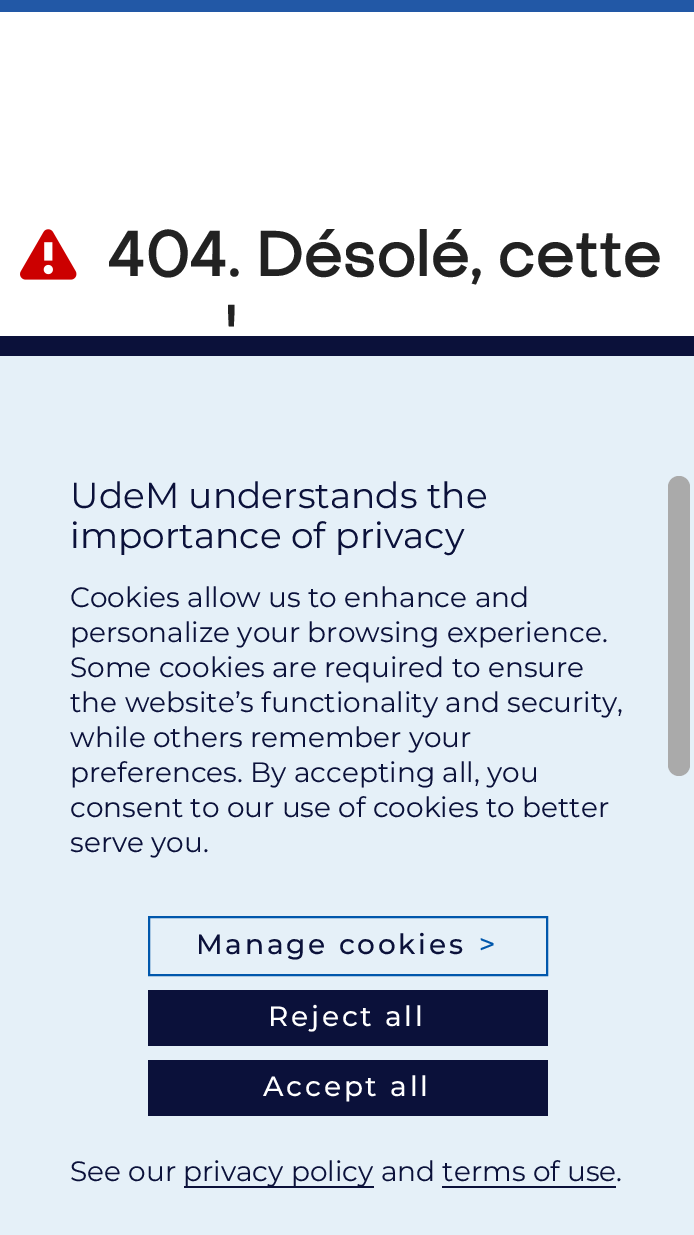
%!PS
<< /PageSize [694 1235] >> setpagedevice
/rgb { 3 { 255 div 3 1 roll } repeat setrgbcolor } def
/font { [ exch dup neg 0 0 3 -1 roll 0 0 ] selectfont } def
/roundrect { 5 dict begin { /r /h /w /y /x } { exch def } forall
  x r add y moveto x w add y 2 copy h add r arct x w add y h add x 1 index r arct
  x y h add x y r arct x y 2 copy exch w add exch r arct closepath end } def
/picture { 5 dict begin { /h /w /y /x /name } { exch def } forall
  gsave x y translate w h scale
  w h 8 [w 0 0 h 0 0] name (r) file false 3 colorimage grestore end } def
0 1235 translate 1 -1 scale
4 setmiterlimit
255 255 255 rgb
0 0 694 1235 rectfill
34 88 166 rgb
0 0 694 12 rectfill
(img/1.rgb) 20 229 57 51 picture
229 240 248 rgb
0 356 694 879 rectfill
11 17 58 rgb
0 336 694 20 rectfill
170 170 170 rgb
668 476 22 300 11 roundrect fill
0 87 172 rgb
2 setlinewidth
149 917 398 58 rectstroke
[
  [148 990 400 56 11 17 58]
  [148 1060 400 56 11 17 58]
  [184 1186 190 2 11 17 58]
  [442 1186 174 2 11 17 58]
] { aload pop rgb rectfill } forall
/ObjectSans-Bold 61.5 font
34 34 34 rgb
107 276 moveto (404. Désolé, cette) show
225 350 moveto (') show
/Montserrat-Regular 36 font
11 17 58 rgb
70 508 moveto (UdeM understands the) show
70 548 moveto (importance of privacy) show
/Montserrat-Regular 28 font
[
  [(Cookies allow us to enhance and) 70 607]
  [(personalize your browsing experience.) 70 642]
  [(Some cookies are required to ensure) 70 677]
  [(the website’s functionality and security,) 70 712]
  [(while others remember your) 70 747]
  [(preferences. By accepting all, you) 70 782]
  [(consent to our use of cookies to better) 70 817]
  [(serve you.) 70 852]
] { aload pop moveto show } forall
/Montserrat-Medium 28 font
196 954 moveto 2.75 0 (Manage cookies) ashow
0 87 172 rgb
479 954 moveto 2.75 0 (>) ashow
255 255 255 rgb
268 1026 moveto 2.75 0 (Reject all) ashow
263 1096 moveto 2.75 0 (Accept all) ashow
/Montserrat-Regular 28 font
11 17 58 rgb
70 1181 moveto (See our) show
183 1181 moveto (privacy policy and terms of use.) show
showpage
